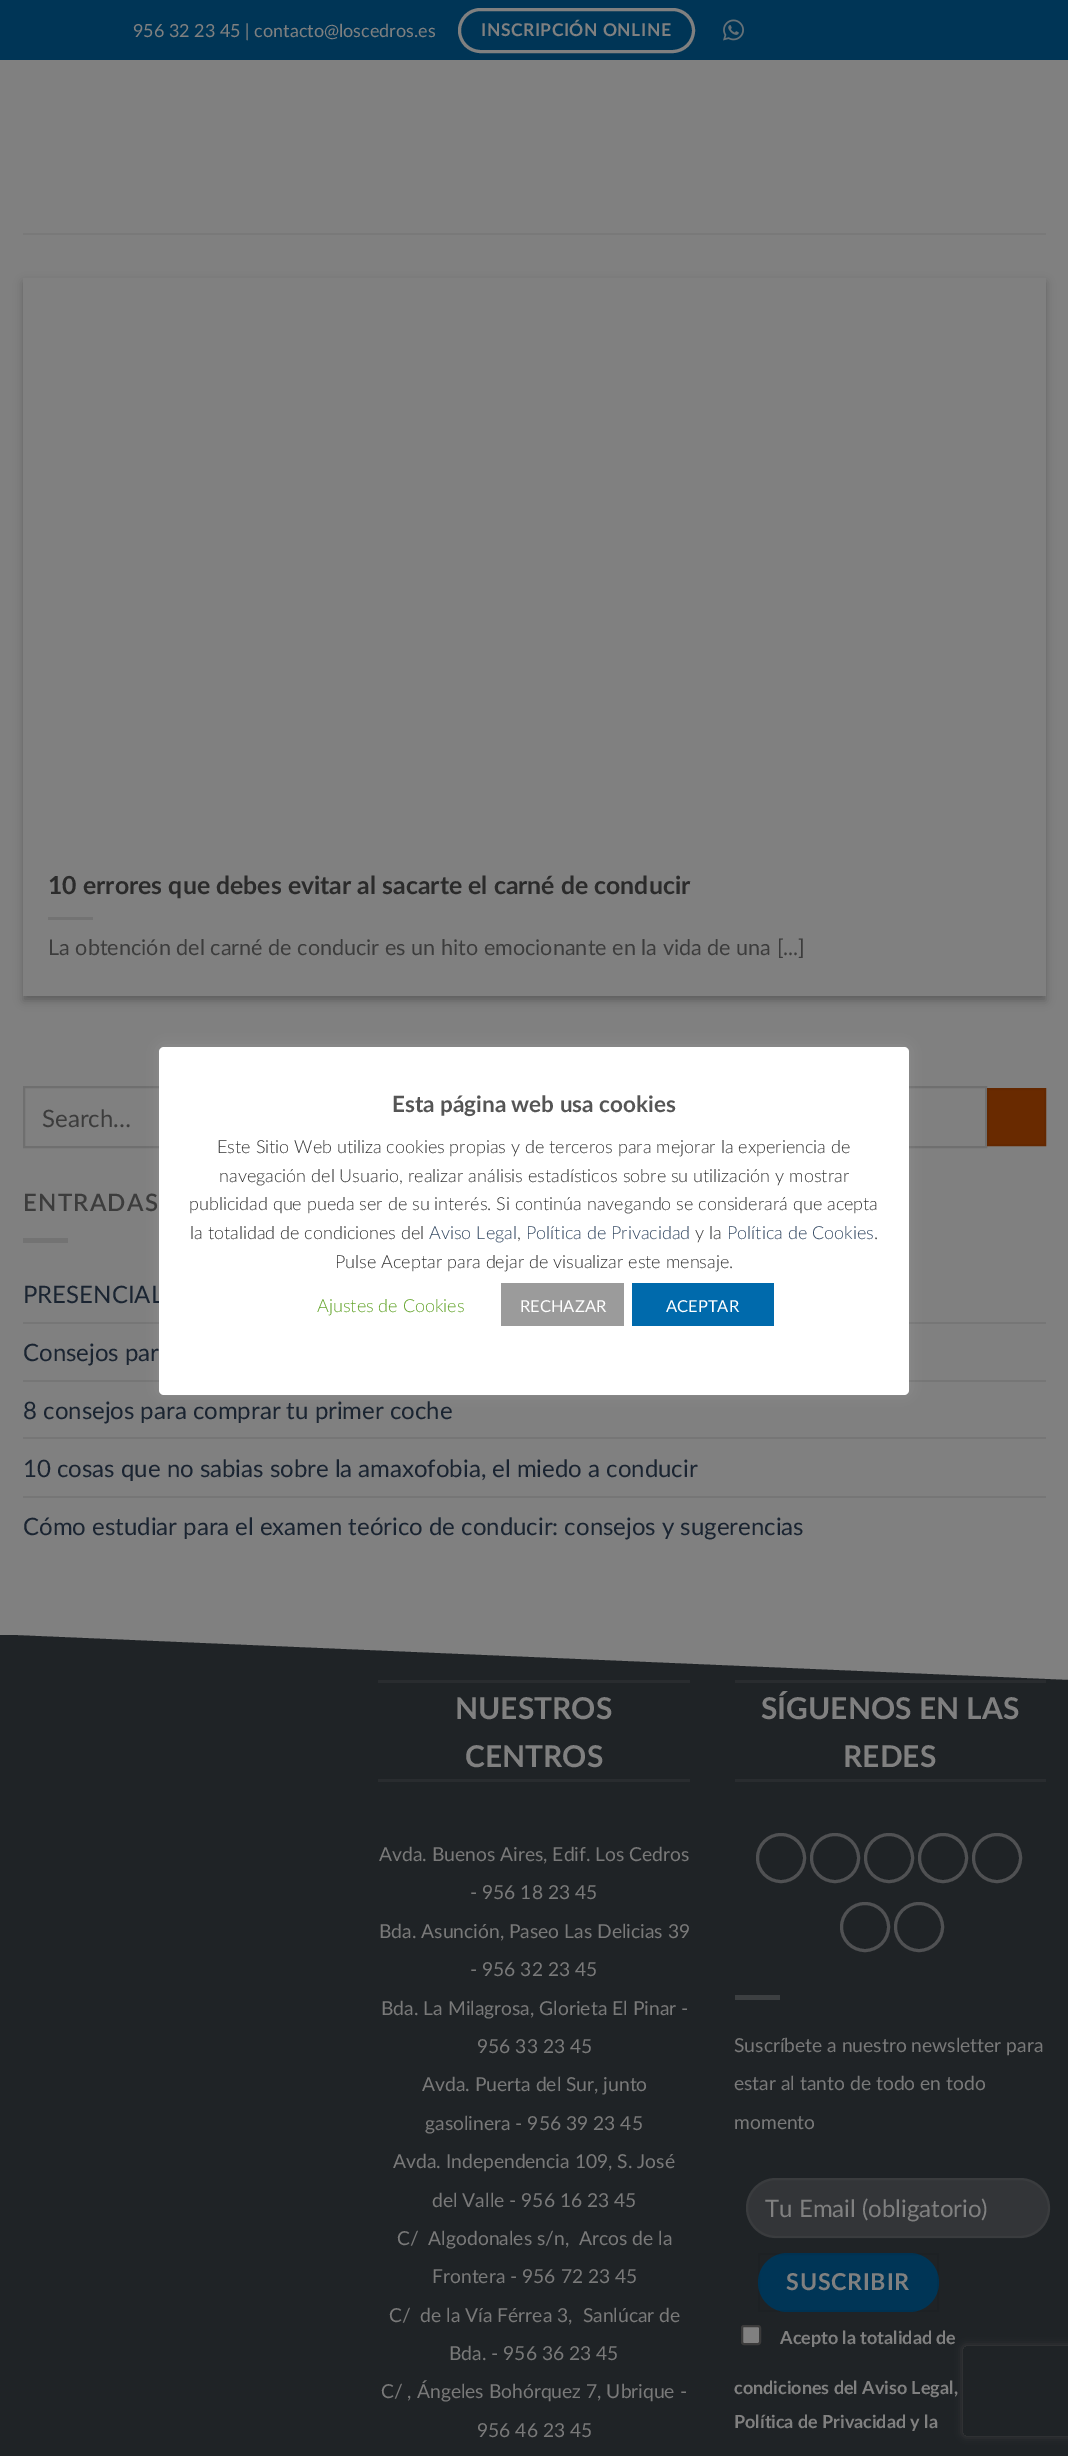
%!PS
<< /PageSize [1068 2456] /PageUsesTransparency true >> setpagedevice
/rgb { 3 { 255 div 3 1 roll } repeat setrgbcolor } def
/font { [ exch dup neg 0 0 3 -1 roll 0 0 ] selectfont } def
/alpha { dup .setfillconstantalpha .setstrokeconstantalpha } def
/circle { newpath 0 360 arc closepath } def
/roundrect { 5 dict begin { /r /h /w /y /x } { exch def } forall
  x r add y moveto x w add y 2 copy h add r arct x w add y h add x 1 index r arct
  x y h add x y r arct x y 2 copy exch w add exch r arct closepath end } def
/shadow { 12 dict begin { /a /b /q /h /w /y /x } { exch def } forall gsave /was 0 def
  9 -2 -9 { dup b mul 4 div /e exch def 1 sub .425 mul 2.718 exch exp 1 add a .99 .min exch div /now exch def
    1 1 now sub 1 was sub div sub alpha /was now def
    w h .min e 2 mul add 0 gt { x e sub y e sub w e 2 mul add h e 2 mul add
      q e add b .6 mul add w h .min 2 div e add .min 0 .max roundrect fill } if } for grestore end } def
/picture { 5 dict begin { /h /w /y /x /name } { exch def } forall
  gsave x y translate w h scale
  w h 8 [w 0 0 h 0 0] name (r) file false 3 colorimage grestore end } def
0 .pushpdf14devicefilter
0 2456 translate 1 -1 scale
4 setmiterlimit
128 128 128 rgb
0 0 1068 2456 rectfill
0 53 86 rgb
0 0 1068 60 rectfill
128 128 128 rgb
3 setlinewidth
459.5 9.5 234 42 21 roundrect stroke
(img/1.rgb) 723 19 21 22 picture
121 121 121 rgb
23 233 1023 2 rectfill
0 0 0 rgb
23 282 1023 719 0 4.5 0.23 shadow
29 288 1011 707 0 4.5 0.16 shadow
128 128 128 rgb
23 278 1023 718 rectfill
115 115 115 rgb
48 917 45 3 rectfill
111 111 111 rgb
2 setlinewidth
24 1087 962 60 rectstroke
105 42 0 rgb
988 1089 moveto 1045 1089 lineto 1045 1145 lineto 988 1145 lineto closepath gsave fill grestore
100 40 0 rgb
stroke
[
  [23 1238 45 5 115 115 115]
  [23 1322 1023 2 118 118 118]
  [23 1380 1023 2 118 118 118]
  [23 1437 1023 2 118 118 118]
  [23 1496 1023 2 118 118 118]
] { aload pop rgb rectfill } forall
31 35 38 rgb
0 1635 moveto 0 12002 lineto 1068 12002 lineto 1068 1680 lineto 12 1635 lineto closepath fill
[
  [378 1680 312 3 41 44 47]
  [378 1779 312 3 41 44 47]
  [735 1680 311 3 41 44 47]
  [735 1779 311 3 41 44 47]
] { aload pop rgb rectfill } forall
80 81 83 rgb
3 setlinewidth
781 1858 23.5 circle stroke
835 1858 23.5 circle stroke
889 1858 23.5 circle stroke
943 1858 23.5 circle stroke
997 1858 23.5 circle stroke
865 1927 23.5 circle stroke
919 1927 23.5 circle stroke
60 63 65 rgb
735 1995 45 5 rectfill
51 53 56 rgb
746 2178 304 60 30 roundrect fill
0.09 alpha
128 128 128 rgb
2 setlinewidth
747 2179 302 58 29 roundrect stroke
1 alpha
0 53 86 rgb
758 2253 181 59 29.5 roundrect fill
0.05 alpha
0 0 0 rgb
759 2254 179 57 rectstroke
1 alpha
128 128 128 rgb
742 2326 18 18 2 roundrect gsave fill grestore
59 59 59 rgb
stroke
172 171 171 rgb
159 1046 750 348 5 7.5 0.3 shadow
gsave
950 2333 moveto 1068 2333 lineto 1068 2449 lineto 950 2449 lineto closepath 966 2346 moveto 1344 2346 lineto 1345.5 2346 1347 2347.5 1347 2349 curveto 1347 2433 lineto 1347 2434.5 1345.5 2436 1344 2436 curveto 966 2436 lineto 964.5 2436 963 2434.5 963 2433 curveto 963 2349 lineto 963 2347.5 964.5 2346 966 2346 curveto closepath eoclip newpath
64 64 64 rgb
963 2346 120 90 3 4 1 shadow
grestore
/Lato-Regular 18 font
128 128 128 rgb
133 37 moveto (956 32 23 45 | contacto@loscedros.es) show
/Lato-Bold 17.5 font
481 36 moveto 0.5 0 (INSCRIPCIÓN ONLINE) ashow
/Lato-Bold 24.85 font
43 43 43 rgb
48 894 moveto (10 errores que debes evitar al sacarte el carné de conducir) show
/Lato-Regular 21.6 font
60 60 60 rgb
48 955 moveto (La obtención del carné de conducir es un hito emocionante en la vida de una [...]) show
/Lato-Regular 24 font
42 1127 moveto (Search…) show
/Lato-SemiBold 24 font
23 1211 moveto 1.25 0 (ENTRADAS) ashow
/Lato-Regular 24 font
26 36 49 rgb
[
  [(PRESENCIAL) 23 1303]
  [(Consejos par) 23 1361]
  [(8 consejos para comprar tu primer coche) 23 1419]
  [(10 cosas que no sabias sobre la amaxofobia, el miedo a conducir) 23 1477]
  [(Cómo estudiar para el examen teórico de conducir: consejos y sugerencias) 23 1535]
] { aload pop moveto show } forall
/Lato-Bold 30 font
128 128 128 rgb
455 1719 moveto (NUESTROS) show
465 1767 moveto (CENTROS) show
/Lato-Regular 19.25 font
121 121 121 rgb
[
  [(Avda. Buenos Aires, Edif. Los Cedros) 379 1861]
  [(- 956 18 23 45) 470 1899]
  [(Bda. Asunción, Paseo Las Delicias 39) 379 1938]
  [(- 956 32 23 45) 470 1976]
  [(Bda. La Milagrosa, Glorieta El Pinar -) 381 2015]
  [(956 33 23 45) 477 2053]
  [(Avda. Puerta del Sur, junto) 422 2091]
  [(gasolinera - 956 39 23 45) 425 2130]
  [(Avda. Independencia 109, S. José) 393 2168]
  [(del Valle - 956 16 23 45) 432 2207]
  [(C/  Algodonales s/n,  Arcos de la) 397 2245]
  [(Frontera - 956 72 23 45) 432 2283]
  [(C/  de la Vía Férrea 3,  Sanlúcar de) 389 2322]
  [(Bda. - 956 36 23 45) 449 2360]
  [(C/ , Ángeles Bohórquez 7, Ubrique -) 381 2398]
  [(956 46 23 45) 477 2437]
] { aload pop moveto show } forall
/Lato-Bold 30 font
128 128 128 rgb
761 1719 moveto (SÍGUENOS EN LAS) show
843 1767 moveto (REDES) show
/Lato-Regular 19.25 font
121 121 121 rgb
[
  [(Suscríbete a nuestro newsletter para) 734 2052]
  [(estar al tanto de todo en todo) 734 2090]
  [(momento) 734 2129]
] { aload pop moveto show } forall
/Lato-Regular 24 font
128 128 128 rgb
765 2217 moveto (Tu Email \(obligatorio\)) show
/Lato-Bold 23.25 font
786 2290 moveto 0.75 0 (SUSCRIBIR) ashow
/Lato-Bold 18 font
[
  [(Acepto la totalidad de) 780 2344]
  [(condiciones del Aviso Legal,) 734 2394]
  [(Política de Privacidad y la) 734 2428]
] { aload pop moveto show } forall
255 255 255 rgb
159 1047 750 348 5 roundrect fill
/Lato-Bold 22.5 font
85 85 85 rgb
392 1112 moveto (Esta página web usa cookies) show
/Lato-Light 18 font
51 51 51 rgb
[
  [(Este Sitio Web utiliza cookies propias y de terceros para mejorar la experiencia de) 217 1153]
  [(navegación del Usuario, realizar análisis estadísticos sobre su utilización y mostrar) 219 1182]
  [(publicidad que pueda ser de su interés. Si continúa navegando se considerará que acepta) 189 1210]
  [(la totalidad de condiciones del) 190 1239]
] { aload pop moveto show } forall
51 72 98 rgb
429 1239 moveto (Aviso Legal) show
51 51 51 rgb
517 1239 moveto (,) show
51 72 98 rgb
526 1239 moveto (Política de Privacidad) show
51 51 51 rgb
695 1239 moveto (y la) show
51 72 98 rgb
727 1239 moveto (Política de Cookies) show
51 51 51 rgb
874 1239 moveto (.) show
335 1268 moveto (Pulse Aceptar para dejar de visualizar este mensaje.) show
98 163 41 rgb
317 1312 moveto (Ajustes de Cookies) show
155 155 155 rgb
501 1283 123 43 rectfill
/Lato-Regular 16.5 font
255 255 255 rgb
520 1312 moveto (RECHAZAR) show
0 106 172 rgb
632 1283 142 43 rectfill
255 255 255 rgb
666 1312 moveto (ACEPTAR) show
.poppdf14devicefilter showpage
